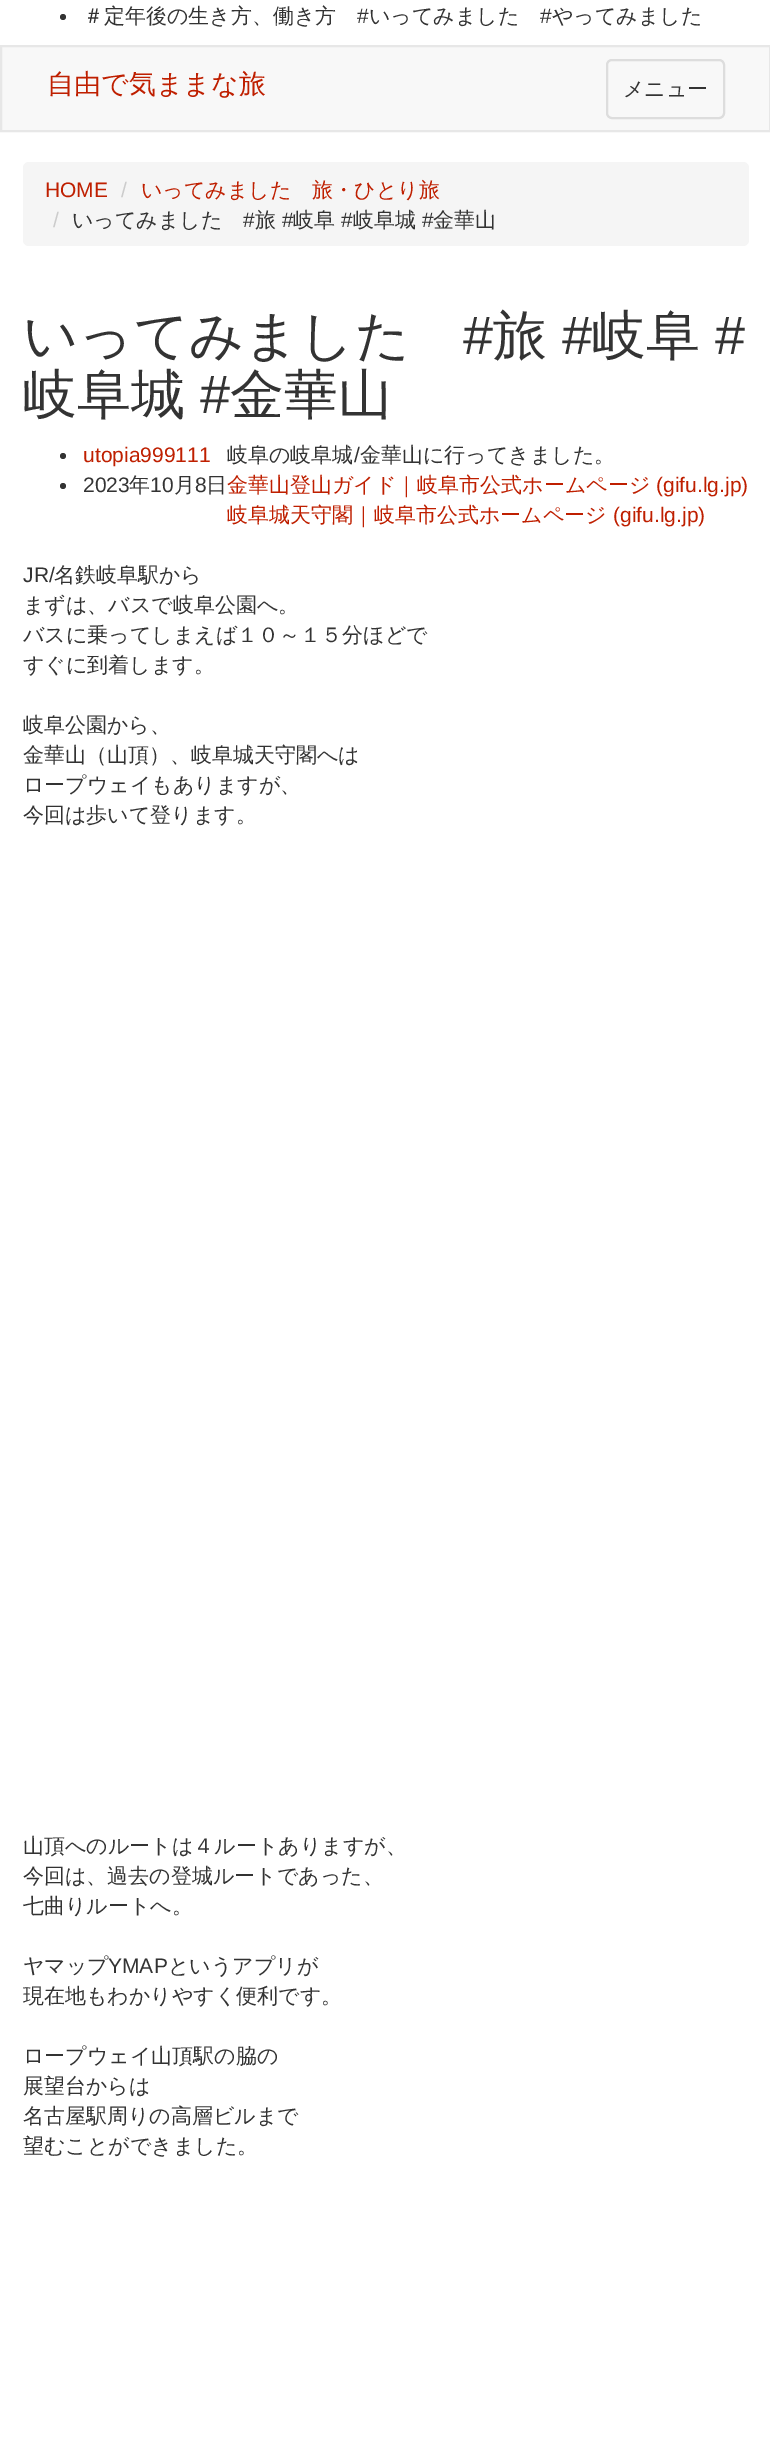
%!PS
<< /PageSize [770 2455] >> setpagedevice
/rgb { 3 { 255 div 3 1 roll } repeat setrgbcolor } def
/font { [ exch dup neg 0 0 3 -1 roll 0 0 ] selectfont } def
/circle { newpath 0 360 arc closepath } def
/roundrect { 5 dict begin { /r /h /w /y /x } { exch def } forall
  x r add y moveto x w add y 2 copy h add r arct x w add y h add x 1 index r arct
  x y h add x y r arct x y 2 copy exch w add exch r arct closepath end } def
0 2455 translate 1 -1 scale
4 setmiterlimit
255 255 255 rgb
0 0 770 2455 rectfill
51 51 51 rgb
63 17 3 circle fill
248 248 248 rgb
1 46 moveto 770 46 lineto 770 131 lineto 1 131 lineto closepath gsave fill grestore
231 231 231 rgb
2 setlinewidth
stroke
221 221 221 rgb
607 60 117 58 5 roundrect stroke
245 245 245 rgb
23 162 726 84 6 roundrect fill
51 51 51 rgb
63 456 3 circle fill
63 486 3 circle fill
/WenQuanYiZenHei-Medium 21 font
83 23 moveto (＃定年後の生き方、働き方) show
/LiberationSans-Regular 21 font
357 23 moveto (#) show
/WenQuanYiZenHei-Medium 21 font
369 23 moveto (いってみました) show
/LiberationSans-Regular 21 font
540 23 moveto (#) show
/WenQuanYiZenHei-Medium 21 font
552 23 moveto (やってみました) show
/WenQuanYiZenHei-Medium 27 font
191 31 0 rgb
47 93 moveto (自由で気ままな旅) show
/WenQuanYiZenHei-Medium 21 font
51 51 51 rgb
623 96 moveto (メニュー) show
/LiberationSans-Regular 21 font
191 31 0 rgb
45 197 moveto (HOME) show
204 204 204 rgb
121 197 moveto (/) show
/WenQuanYiZenHei-Medium 21 font
191 31 0 rgb
141 197 moveto (いってみました　旅・ひとり旅) show
/LiberationSans-Regular 21 font
204 204 204 rgb
53 227 moveto (/) show
/WenQuanYiZenHei-Medium 21 font
51 51 51 rgb
72 227 moveto (いってみました) show
/LiberationSans-Regular 21 font
243 227 moveto (#) show
/WenQuanYiZenHei-Medium 21 font
255 227 moveto (旅) show
/LiberationSans-Regular 21 font
282 227 moveto (#) show
/WenQuanYiZenHei-Medium 21 font
293 227 moveto (岐阜) show
/LiberationSans-Regular 21 font
341 227 moveto (#) show
/WenQuanYiZenHei-Medium 21 font
353 227 moveto (岐阜城) show
/LiberationSans-Regular 21 font
422 227 moveto (#) show
/WenQuanYiZenHei-Medium 21 font
433 227 moveto (金華山) show
/WenQuanYiZenHei-Medium 54 font
23 354 moveto (いってみました) show
/LiberationSans-Regular 54 font
463 354 moveto (#) show
/WenQuanYiZenHei-Medium 54 font
493 354 moveto (旅) show
/LiberationSans-Regular 54 font
562 354 moveto (#) show
/WenQuanYiZenHei-Medium 54 font
592 354 moveto (岐阜) show
/LiberationSans-Regular 54 font
715 354 moveto (#) show
/WenQuanYiZenHei-Medium 54 font
23 413 moveto (岐阜城) show
/LiberationSans-Regular 54 font
200 413 moveto (#) show
/WenQuanYiZenHei-Medium 54 font
230 413 moveto (金華山) show
/LiberationSans-Regular 21 font
191 31 0 rgb
83 462 moveto (utopia999111) show
51 51 51 rgb
83 492 moveto (2023) show
/WenQuanYiZenHei-Medium 21 font
129 492 moveto (年) show
/LiberationSans-Regular 21 font
150 492 moveto (10) show
/WenQuanYiZenHei-Medium 21 font
174 492 moveto (月) show
/LiberationSans-Regular 21 font
195 492 moveto (8) show
/WenQuanYiZenHei-Medium 21 font
206 492 moveto (日) show
227 462 moveto (岐阜の岐阜城) show
/LiberationSans-Regular 21 font
354 462 moveto (/) show
/WenQuanYiZenHei-Medium 21 font
360 462 moveto (金華山に行ってきました。) show
191 31 0 rgb
227 492 moveto (金華山登山ガイド｜岐阜市公式ホームページ) show
/LiberationSans-Regular 21 font
656 492 moveto (\(gifu.lg.jp\)) show
/WenQuanYiZenHei-Medium 21 font
227 522 moveto (岐阜城天守閣｜岐阜市公式ホームページ) show
/LiberationSans-Regular 21 font
613 522 moveto (\(gifu.lg.jp\)) show
51 51 51 rgb
23 582 moveto (JR/) show
/WenQuanYiZenHei-Medium 21 font
[
  [(名鉄岐阜駅から) 54 582]
  [(まずは、バスで岐阜公園へ。) 23 612]
  [(バスに乗ってしまえば１０～１５分ほどで) 23 642]
  [(すぐに到着します。) 23 672]
  [(岐阜公園から、) 23 732]
  [(金華山（山頂）、岐阜城天守閣へは) 23 762]
  [(ロープウェイもありますが、) 23 792]
  [(今回は歩いて登ります。) 23 822]
  [(山頂へのルートは４ルートありますが、) 23 1853]
  [(今回は、過去の登城ルートであった、) 23 1883]
  [(七曲りルートへ。) 23 1913]
  [(ヤマップ) 23 1973]
] { aload pop moveto show } forall
/LiberationSans-Regular 21 font
108 1973 moveto (YMAP) show
/WenQuanYiZenHei-Medium 21 font
[
  [(というアプリが) 168 1973]
  [(現在地もわかりやすく便利です。) 23 2003]
  [(ロープウェイ山頂駅の脇の) 23 2063]
  [(展望台からは) 23 2093]
  [(名古屋駅周りの高層ビルまで) 23 2123]
  [(望むことができました。) 23 2153]
] { aload pop moveto show } forall
showpage
